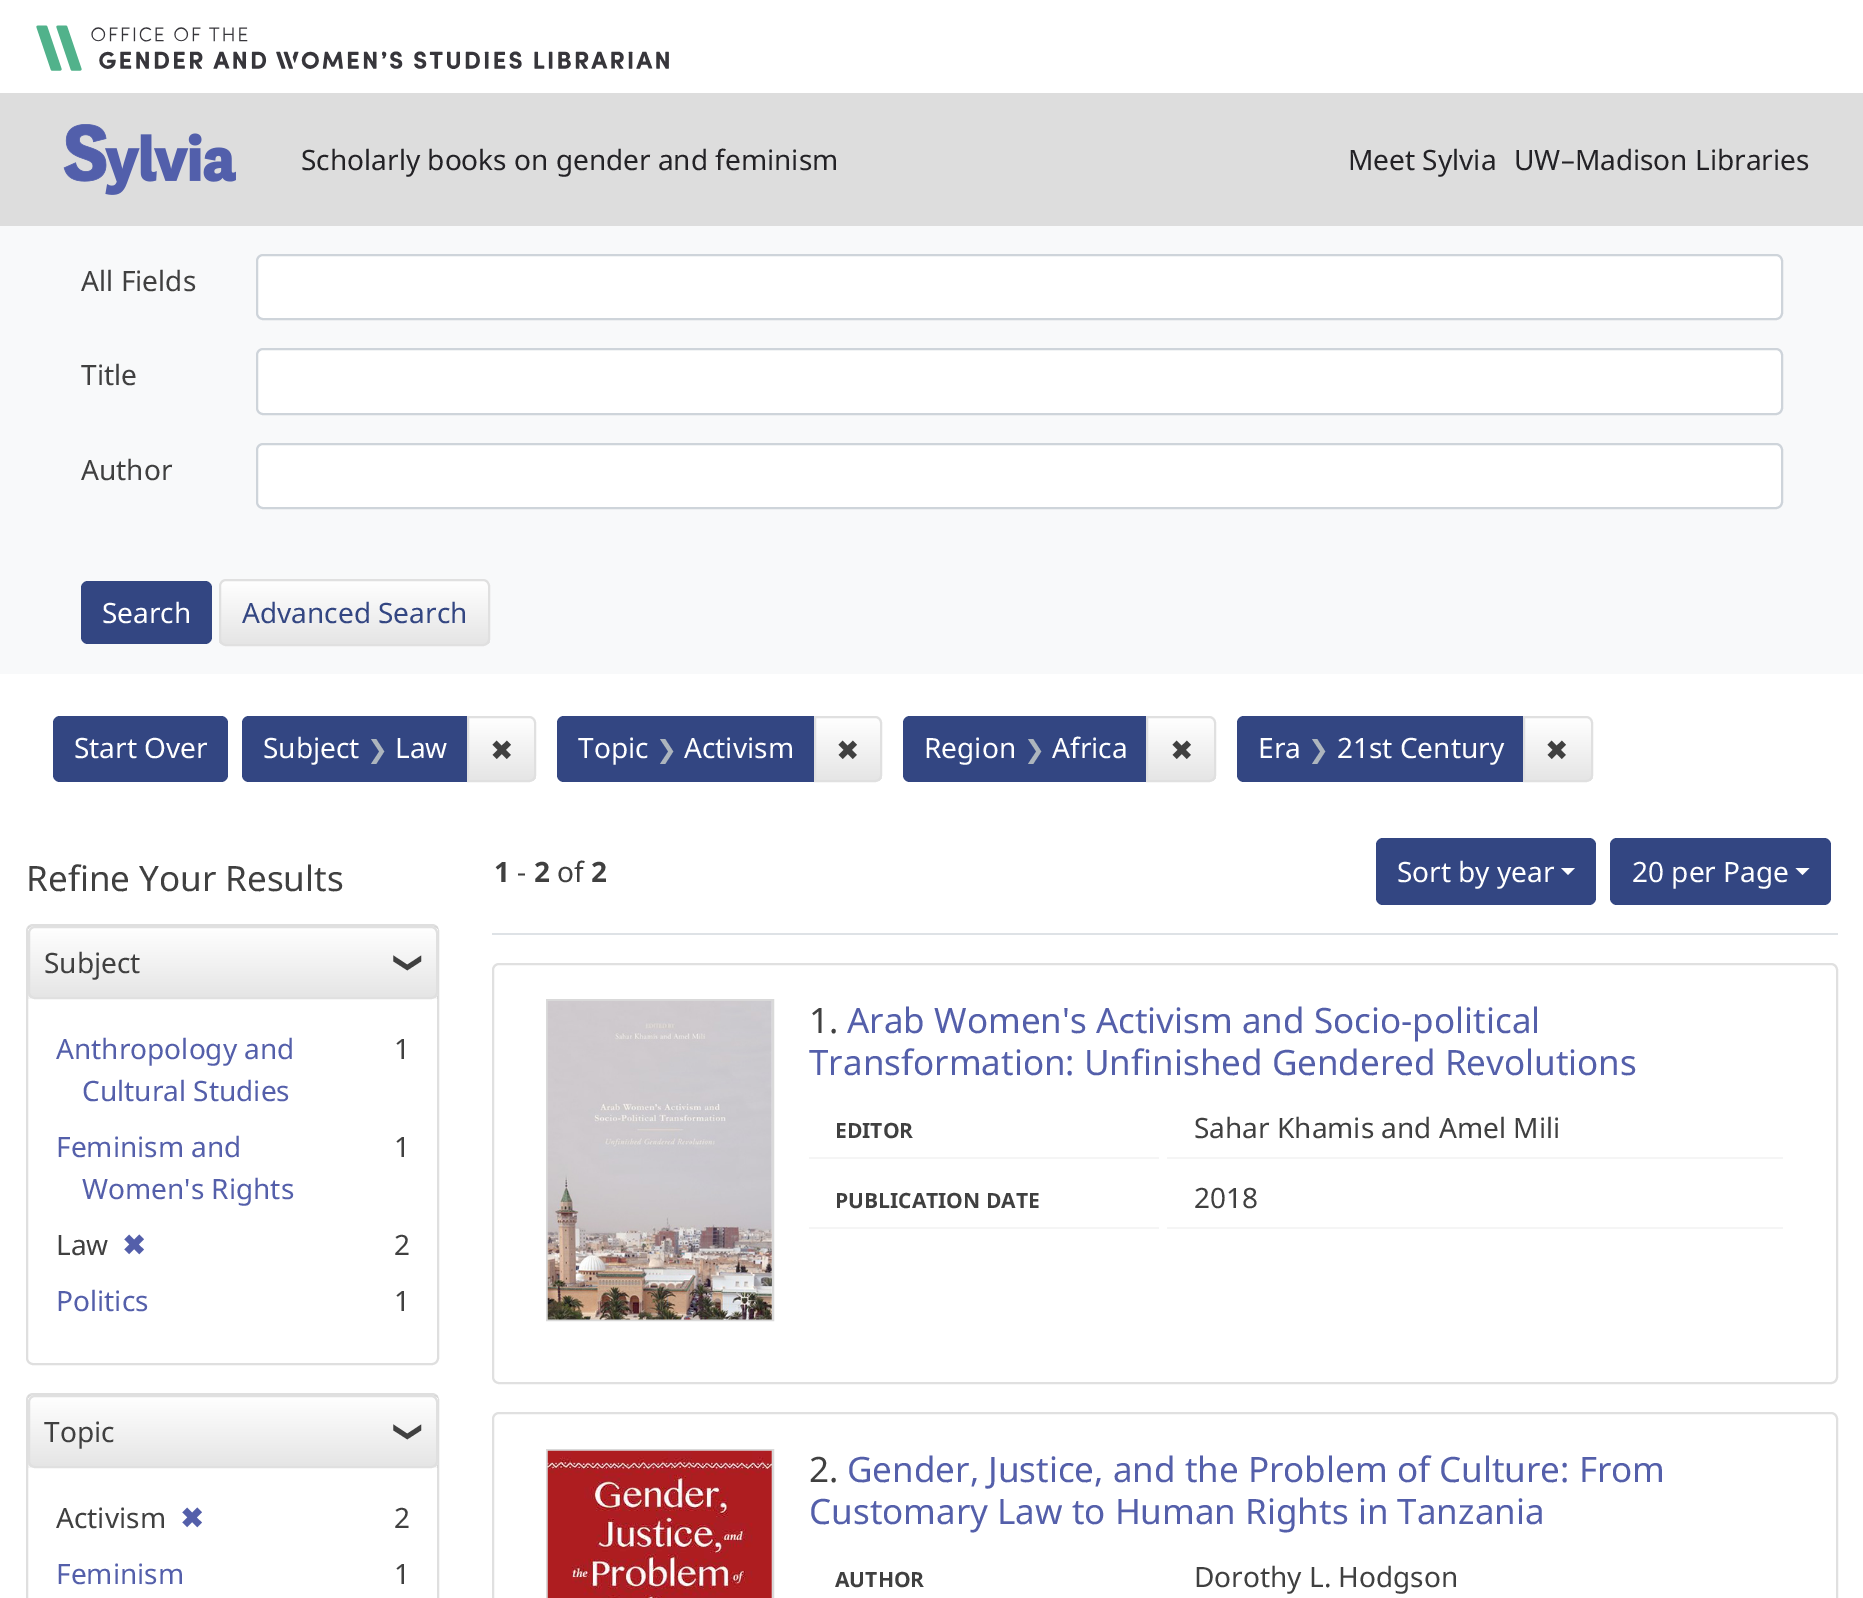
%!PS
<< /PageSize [1863 1598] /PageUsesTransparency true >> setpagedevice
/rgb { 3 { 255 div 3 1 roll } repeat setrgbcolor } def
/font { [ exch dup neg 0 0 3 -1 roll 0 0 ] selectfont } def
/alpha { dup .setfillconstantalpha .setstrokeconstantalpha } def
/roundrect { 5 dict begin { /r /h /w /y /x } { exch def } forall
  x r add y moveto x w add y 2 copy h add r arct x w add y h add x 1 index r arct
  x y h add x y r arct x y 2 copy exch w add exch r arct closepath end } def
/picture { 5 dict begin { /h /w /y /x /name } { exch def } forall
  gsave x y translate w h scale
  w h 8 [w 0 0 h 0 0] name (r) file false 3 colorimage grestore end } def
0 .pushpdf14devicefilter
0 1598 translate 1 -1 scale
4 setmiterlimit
255 255 255 rgb
0 0 1863 1598 rectfill
(img/1.rgb) 36 25 633 46 picture
221 221 221 rgb
0 93 1863 133 rectfill
(img/2.rgb) 63 124 173 71 picture
248 249 250 rgb
0 226 1863 448 rectfill
255 255 255 rgb
257 255 1525 64 6 roundrect gsave fill grestore
206 212 218 rgb
2 setlinewidth
stroke
255 255 255 rgb
257 349 1525 65 6 roundrect gsave fill grestore
206 212 218 rgb
stroke
255 255 255 rgb
257 444 1525 64 6 roundrect gsave fill grestore
206 212 218 rgb
stroke
51 70 130 rgb
81 581 131 63 7 roundrect fill
gsave
219 579 271 67 7 roundrect clip newpath
gsave 219 581 moveto 490 581 lineto 490 644 lineto 219 644 lineto closepath clip newpath
<< /ShadingType 2 /ColorSpace /DeviceRGB /Coords [354 581 354 644] /Extend [true true] /Function << /FunctionType 2 /Domain [0 1] /C0 [1 1 1] /C1 [0.898 0.898 0.898] /N 1 >> >> shfill grestore
grestore
224 224 224 rgb
220 580 269 65 6 roundrect stroke
51 70 130 rgb
53 716 175 66 7 roundrect fill
249 716 moveto 469 716 lineto 469 782 lineto 249 782 lineto 245 782 242 779 242 775 curveto 242 723 lineto 242 719 245 716 249 716 curveto closepath fill
gsave
467 716 moveto 529 716 lineto 533 716 536 719 536 723 curveto 536 775 lineto 536 779 533 782 529 782 curveto 467 782 lineto closepath clip newpath
gsave 469 718 moveto 536 718 lineto 536 781 lineto 469 781 lineto closepath clip newpath
<< /ShadingType 2 /ColorSpace /DeviceRGB /Coords [501 718 501 781] /Extend [true true] /Function << /FunctionType 2 /Domain [0 1] /C0 [1 1 1] /C1 [0.898 0.898 0.898] /N 1 >> >> shfill grestore
grestore
224 224 224 rgb
468 717 moveto 529 717 lineto 532.5 717 535 719.5 535 723 curveto 535 775 lineto 535 778.5 532.5 781 529 781 curveto 468 781 lineto closepath stroke
51 70 130 rgb
564 716 moveto 816 716 lineto 816 782 lineto 564 782 lineto 560 782 557 779 557 775 curveto 557 723 lineto 557 719 560 716 564 716 curveto closepath fill
gsave
814 716 moveto 875 716 lineto 879 716 882 719 882 723 curveto 882 775 lineto 882 779 879 782 875 782 curveto 814 782 lineto closepath clip newpath
gsave 816 718 moveto 882 718 lineto 882 781 lineto 816 781 lineto closepath clip newpath
<< /ShadingType 2 /ColorSpace /DeviceRGB /Coords [848 718 848 781] /Extend [true true] /Function << /FunctionType 2 /Domain [0 1] /C0 [1 1 1] /C1 [0.898 0.898 0.898] /N 1 >> >> shfill grestore
grestore
224 224 224 rgb
815 717 moveto 875 717 lineto 878.5 717 881 719.5 881 723 curveto 881 775 lineto 881 778.5 878.5 781 875 781 curveto 815 781 lineto closepath stroke
51 70 130 rgb
910 716 moveto 1148 716 lineto 1148 782 lineto 910 782 lineto 906 782 903 779 903 775 curveto 903 723 lineto 903 719 906 716 910 716 curveto closepath fill
gsave
1146 716 moveto 1209 716 lineto 1213 716 1216 719 1216 723 curveto 1216 775 lineto 1216 779 1213 782 1209 782 curveto 1146 782 lineto closepath clip newpath
gsave 1148 718 moveto 1216 718 lineto 1216 781 lineto 1148 781 lineto closepath clip newpath
<< /ShadingType 2 /ColorSpace /DeviceRGB /Coords [1181 718 1181 781] /Extend [true true] /Function << /FunctionType 2 /Domain [0 1] /C0 [1 1 1] /C1 [0.898 0.898 0.898] /N 1 >> >> shfill grestore
grestore
224 224 224 rgb
1147 717 moveto 1209 717 lineto 1212.5 717 1215 719.5 1215 723 curveto 1215 775 lineto 1215 778.5 1212.5 781 1209 781 curveto 1147 781 lineto closepath stroke
51 70 130 rgb
1244 716 moveto 1524 716 lineto 1524 782 lineto 1244 782 lineto 1240 782 1237 779 1237 775 curveto 1237 723 lineto 1237 719 1240 716 1244 716 curveto closepath fill
gsave
1523 716 moveto 1586 716 lineto 1590 716 1593 719 1593 723 curveto 1593 775 lineto 1593 779 1590 782 1586 782 curveto 1523 782 lineto closepath clip newpath
gsave 1525 718 moveto 1593 718 lineto 1593 781 lineto 1525 781 lineto closepath clip newpath
<< /ShadingType 2 /ColorSpace /DeviceRGB /Coords [1558 718 1558 781] /Extend [true true] /Function << /FunctionType 2 /Domain [0 1] /C0 [1 1 1] /C1 [0.898 0.898 0.898] /N 1 >> >> shfill grestore
grestore
224 224 224 rgb
1524 717 moveto 1586 717 lineto 1589.5 717 1592 719.5 1592 723 curveto 1592 775 lineto 1592 778.5 1589.5 781 1586 781 curveto 1524 781 lineto closepath stroke
223 223 223 rgb
27 925 411 439 6 roundrect stroke
0.03 alpha
0 0 0 rgb
28 926 410 73 rectfill
gsave
28 926 410 73 7 roundrect clip newpath
1 alpha
gsave 28 928 moveto 438 928 lineto 438 998 lineto 28 998 lineto closepath clip newpath
<< /ShadingType 2 /ColorSpace /DeviceRGB /Coords [233 928 233 998] /Extend [true true] /Function << /FunctionType 2 /Domain [0 1] /C0 [1 1 1] /C1 [0.898 0.898 0.898] /N 1 >> >> shfill grestore
grestore
1 alpha
224 224 224 rgb
29 927 408 71 6 roundrect stroke
223 223 223 rgb
27 1394 411 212 6 roundrect stroke
0.03 alpha
0 0 0 rgb
28 1395 410 73 rectfill
gsave
28 1395 410 73 7 roundrect clip newpath
1 alpha
gsave 28 1397 moveto 438 1397 lineto 438 1467 lineto 28 1467 lineto closepath clip newpath
<< /ShadingType 2 /ColorSpace /DeviceRGB /Coords [233 1397 233 1467] /Extend [true true] /Function << /FunctionType 2 /Domain [0 1] /C0 [1 1 1] /C1 [0.898 0.898 0.898] /N 1 >> >> shfill grestore
grestore
1 alpha
224 224 224 rgb
29 1396 408 71 6 roundrect stroke
222 226 230 rgb
492 933 1346 2 rectfill
51 70 130 rgb
1376 838 220 67 7 roundrect fill
255 255 255 rgb
1561 868 moveto 1575 868 lineto 1568 875 lineto closepath fill
51 70 130 rgb
1610 838 221 67 7 roundrect fill
255 255 255 rgb
1795.5 868 moveto 1809.5 868 lineto 1802.5 875 lineto closepath fill
224 224 224 rgb
493 964 1344 419 6 roundrect stroke
217 217 217 rgb
547 1000 226 320 rectstroke
(img/3.rgb) 547 1001 225 319 picture
[
  [809 1157 350 2 245 245 245]
  [1167 1157 616 2 245 245 245]
  [809 1227 350 2 245 245 245]
  [1167 1227 616 2 245 245 245]
] { aload pop rgb rectfill } forall
224 224 224 rgb
493 1413 1344 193 6 roundrect stroke
217 217 217 rgb
547 1450 226 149 rectstroke
(img/4.rgb) 547 1450 225 148 picture
/NotoSans-Regular 28 font
35 34 38 rgb
[
  [(Scholarly books on gender and feminism) 301 170]
  [(Meet Sylvia) 1348 170]
  [(UW–Madison Libraries) 1514 170]
] { aload pop moveto show } forall
64 64 64 rgb
[
  [(All Fields) 81 291]
  [(Title) 81 385]
  [(Author) 81 480]
] { aload pop moveto show } forall
255 255 255 rgb
102 623 moveto (Search) show
51 70 130 rgb
242 623 moveto (Advanced Search) show
255 255 255 rgb
74 758 moveto (Start Over) show
263 758 moveto (Subject) show
/DejaVuSans-Regular 25 font
173 181 189 rgb
367 758 moveto (❯) show
/NotoSans-Regular 28 font
255 255 255 rgb
395 758 moveto (Law) show
/DejaVuSans-Regular 28 font
64 64 64 rgb
490 760 moveto (✖) show
/NotoSans-Regular 28 font
255 255 255 rgb
578 758 moveto (Topic) show
/DejaVuSans-Regular 25 font
173 181 189 rgb
656 758 moveto (❯) show
/NotoSans-Regular 28 font
255 255 255 rgb
684 758 moveto (Activism) show
/DejaVuSans-Regular 28 font
64 64 64 rgb
836 760 moveto (✖) show
/NotoSans-Regular 28 font
255 255 255 rgb
924 758 moveto (Region) show
/DejaVuSans-Regular 25 font
173 181 189 rgb
1024 758 moveto (❯) show
/NotoSans-Regular 28 font
255 255 255 rgb
1052 758 moveto (Africa) show
/DejaVuSans-Regular 28 font
64 64 64 rgb
1170 760 moveto (✖) show
/NotoSans-Regular 28 font
255 255 255 rgb
1258 758 moveto (Era) show
/DejaVuSans-Regular 25 font
173 181 189 rgb
1308 758 moveto (❯) show
/NotoSans-Regular 28 font
255 255 255 rgb
1337 758 moveto (21st Century) show
/DejaVuSans-Regular 28 font
64 64 64 rgb
1545 760 moveto (✖) show
/NotoSans-Regular 35 font
26 891 moveto (Refine Your Results) show
/NotoSans-Regular 28 font
44 973 moveto (Subject) show
/DejaVuSans-Regular 28 font
gsave 400 951 translate 90 rotate 0 0 moveto (❯) show grestore
/NotoSans-Regular 28 font
84 95 170 rgb
56 1059 moveto (Anthropology and) show
82 1101 moveto (Cultural Studies) show
64 64 64 rgb
394 1059 moveto (1) show
84 95 170 rgb
56 1157 moveto (Feminism and) show
82 1199 moveto (Women's Rights) show
64 64 64 rgb
394 1157 moveto (1) show
56 1255 moveto (Law) show
/DejaVuSans-Bold 28 font
84 95 170 rgb
122 1255 moveto (✖) show
/NotoSans-Regular 28 font
64 64 64 rgb
394 1255 moveto (2) show
84 95 170 rgb
56 1311 moveto (Politics) show
64 64 64 rgb
394 1311 moveto (1) show
44 1442 moveto (Topic) show
/DejaVuSans-Regular 28 font
gsave 400 1420 translate 90 rotate 0 0 moveto (❯) show grestore
/NotoSans-Regular 28 font
56 1528 moveto (Activism) show
/DejaVuSans-Bold 28 font
84 95 170 rgb
180 1528 moveto (✖) show
/NotoSans-Regular 28 font
64 64 64 rgb
394 1528 moveto (2) show
84 95 170 rgb
56 1584 moveto (Feminism) show
64 64 64 rgb
394 1584 moveto (1) show
/NotoSans-Bold 28 font
494 882 moveto (1) show
/NotoSans-Regular 28 font
517 882 moveto (-) show
/NotoSans-Bold 28 font
534 882 moveto (2) show
/NotoSans-Regular 28 font
557 882 moveto (of) show
/NotoSans-Bold 28 font
591 882 moveto (2) show
/NotoSans-Regular 28 font
255 255 255 rgb
1397 882 moveto (Sort by year) show
1632 882 moveto (20 per Page) show
/NotoSans-Regular 35 font
64 64 64 rgb
809 1033 moveto (1.) show
84 95 170 rgb
847 1033 moveto (Arab Women's Activism and Socio-political) show
809 1075 moveto (Transformation: Unfinished Gendered Revolutions) show
/NotoSans-Bold 21 font
64 64 64 rgb
835 1138 moveto (EDITOR) show
/NotoSans-Regular 28 font
1194 1138 moveto (Sahar Khamis and Amel Mili) show
/NotoSans-Bold 21 font
835 1208 moveto (PUBLICATION DATE) show
/NotoSans-Regular 28 font
1194 1208 moveto (2018) show
/NotoSans-Regular 35 font
809 1482 moveto (2.) show
84 95 170 rgb
847 1482 moveto (Gender, Justice, and the Problem of Culture: From) show
809 1524 moveto (Customary Law to Human Rights in Tanzania) show
/NotoSans-Bold 21 font
64 64 64 rgb
835 1587 moveto (AUTHOR) show
/NotoSans-Regular 28 font
1194 1587 moveto (Dorothy L. Hodgson) show
.poppdf14devicefilter showpage
